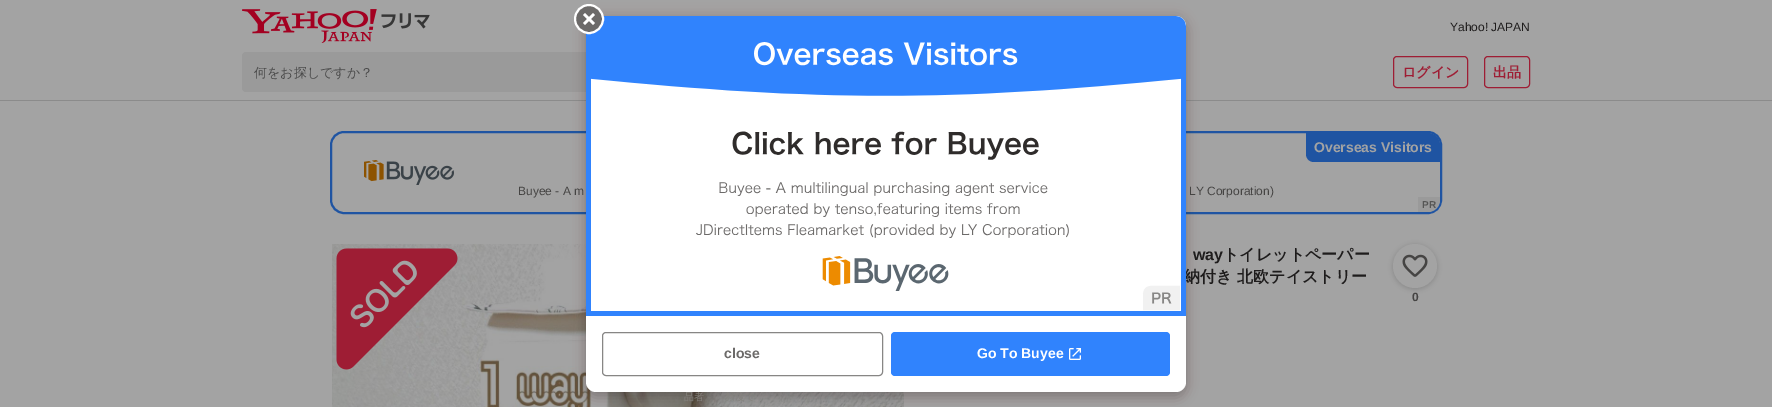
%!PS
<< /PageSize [1772 407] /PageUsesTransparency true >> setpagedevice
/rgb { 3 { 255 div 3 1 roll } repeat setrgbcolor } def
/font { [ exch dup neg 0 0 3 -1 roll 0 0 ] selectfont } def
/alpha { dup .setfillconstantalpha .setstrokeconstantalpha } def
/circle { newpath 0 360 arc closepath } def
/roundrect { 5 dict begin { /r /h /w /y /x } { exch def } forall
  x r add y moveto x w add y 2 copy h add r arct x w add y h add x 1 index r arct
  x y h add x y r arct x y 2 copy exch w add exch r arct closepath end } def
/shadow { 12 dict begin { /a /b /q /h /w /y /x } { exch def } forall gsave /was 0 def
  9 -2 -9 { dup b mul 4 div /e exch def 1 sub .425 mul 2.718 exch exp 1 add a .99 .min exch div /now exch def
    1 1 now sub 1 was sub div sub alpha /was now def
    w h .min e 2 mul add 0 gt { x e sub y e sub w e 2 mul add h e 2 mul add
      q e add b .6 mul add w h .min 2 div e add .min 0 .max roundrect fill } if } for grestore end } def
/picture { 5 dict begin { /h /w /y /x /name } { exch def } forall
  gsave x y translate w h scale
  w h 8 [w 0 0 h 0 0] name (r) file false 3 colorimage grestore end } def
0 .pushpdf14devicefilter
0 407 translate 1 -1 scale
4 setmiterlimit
163 163 163 rgb
0 0 1772 407 rectfill
139 139 139 rgb
0 100 1772 1 rectfill
(img/1.rgb) 242 9 188 34 picture
154 154 154 rgb
242 52 890 40 4 roundrect fill
158 29 52 rgb
1393.5 56.5 74 31 3.5 roundrect stroke
1484.5 56.5 45 31 3.5 roundrect stroke
31 84 162 rgb
1306 133 moveto 1428 133 lineto 1434.5 133 1440 138.5 1440 145 curveto 1440 162 lineto 1314 162 lineto 1309.5 162 1306 158.5 1306 154 curveto closepath fill
(img/2.rgb) 364 160 90 25 picture
2 setlinewidth
331 132 1110 81 13 roundrect stroke
154 154 154 rgb
1418 197 moveto 1440 197 lineto 1440 200 lineto 1440 206.5 1434.5 212 1428 212 curveto 1418 212 lineto closepath fill
(img/3.rgb) 332 244 572 163 picture
(img/4.rgb) 336 248 122 122 picture
0 0 0 rgb
1393 245 44 44 22 2.5 0.17 shadow
163 163 163 rgb
1415 266 22 circle fill
(img/5.rgb) 1402 254 26 23 picture
41 25 25 rgb
586 16 600 376 10 6 0.12 shadow
586 22 600 376 10 6 0.24 shadow
/LiberationSans-Regular 12 font
30 28 28 rgb
1450 31 moveto (Yahoo! JAPAN) show
/WenQuanYiZenHei-Medium 13 font
75 75 75 rgb
254 77 moveto (何をお探しですか？) show
/WenQuanYiZenHei-Bold 14 font
158 29 52 rgb
1402 77 moveto (ログイン) show
1493 77 moveto (出品) show
/LiberationSans-Bold 14 font
163 163 163 rgb
1314 152 moveto (Overseas Visitors) show
/LiberationSans-Regular 12 font
69 68 67 rgb
518 195 moveto (Buyee - A m) show
1189 195 moveto (LY Corporation\)) show
/LiberationSans-Bold 10 font
86 86 85 rgb
1422 208 moveto (PR) show
/LiberationSans-Bold 16 font
30 28 28 rgb
1193 260 moveto (way) show
/WenQuanYiZenHei-Bold 16 font
1223 260 moveto (トイレットペーパー) show
1184 282 moveto (納付き 北欧テイストリー) show
/LiberationSans-Bold 12 font
69 68 67 rgb
1412 301 moveto (0) show
/WenQuanYiZenHei-Medium 10 font
132 130 125 rgb
684 400 moveto (品者) show
725 400 moveto (頻度で) show
255 255 255 rgb
586 16 600 376 10 roundrect fill
(img/6.rgb) 586 16 600 300 picture
108 106 105 rgb
589 19 14 circle gsave fill grestore
255 255 255 rgb
stroke
585 13 moveto 595 23 lineto 593 25 lineto 583 15 lineto closepath fill
583 23 moveto 593 13 lineto 595 15 lineto 585 25 lineto closepath fill
135 134 133 rgb
1 setlinewidth
602.5 332.5 280 43 3.5 roundrect stroke
/LiberationSans-Bold 14 font
108 106 105 rgb
724 358 moveto (close) show
48 131 253 rgb
891 332 279 44 4 roundrect fill
255 255 255 rgb
977 358 moveto (Go To Buyee) show
(img/7.rgb) 1069 348 12 12 picture
.poppdf14devicefilter showpage
